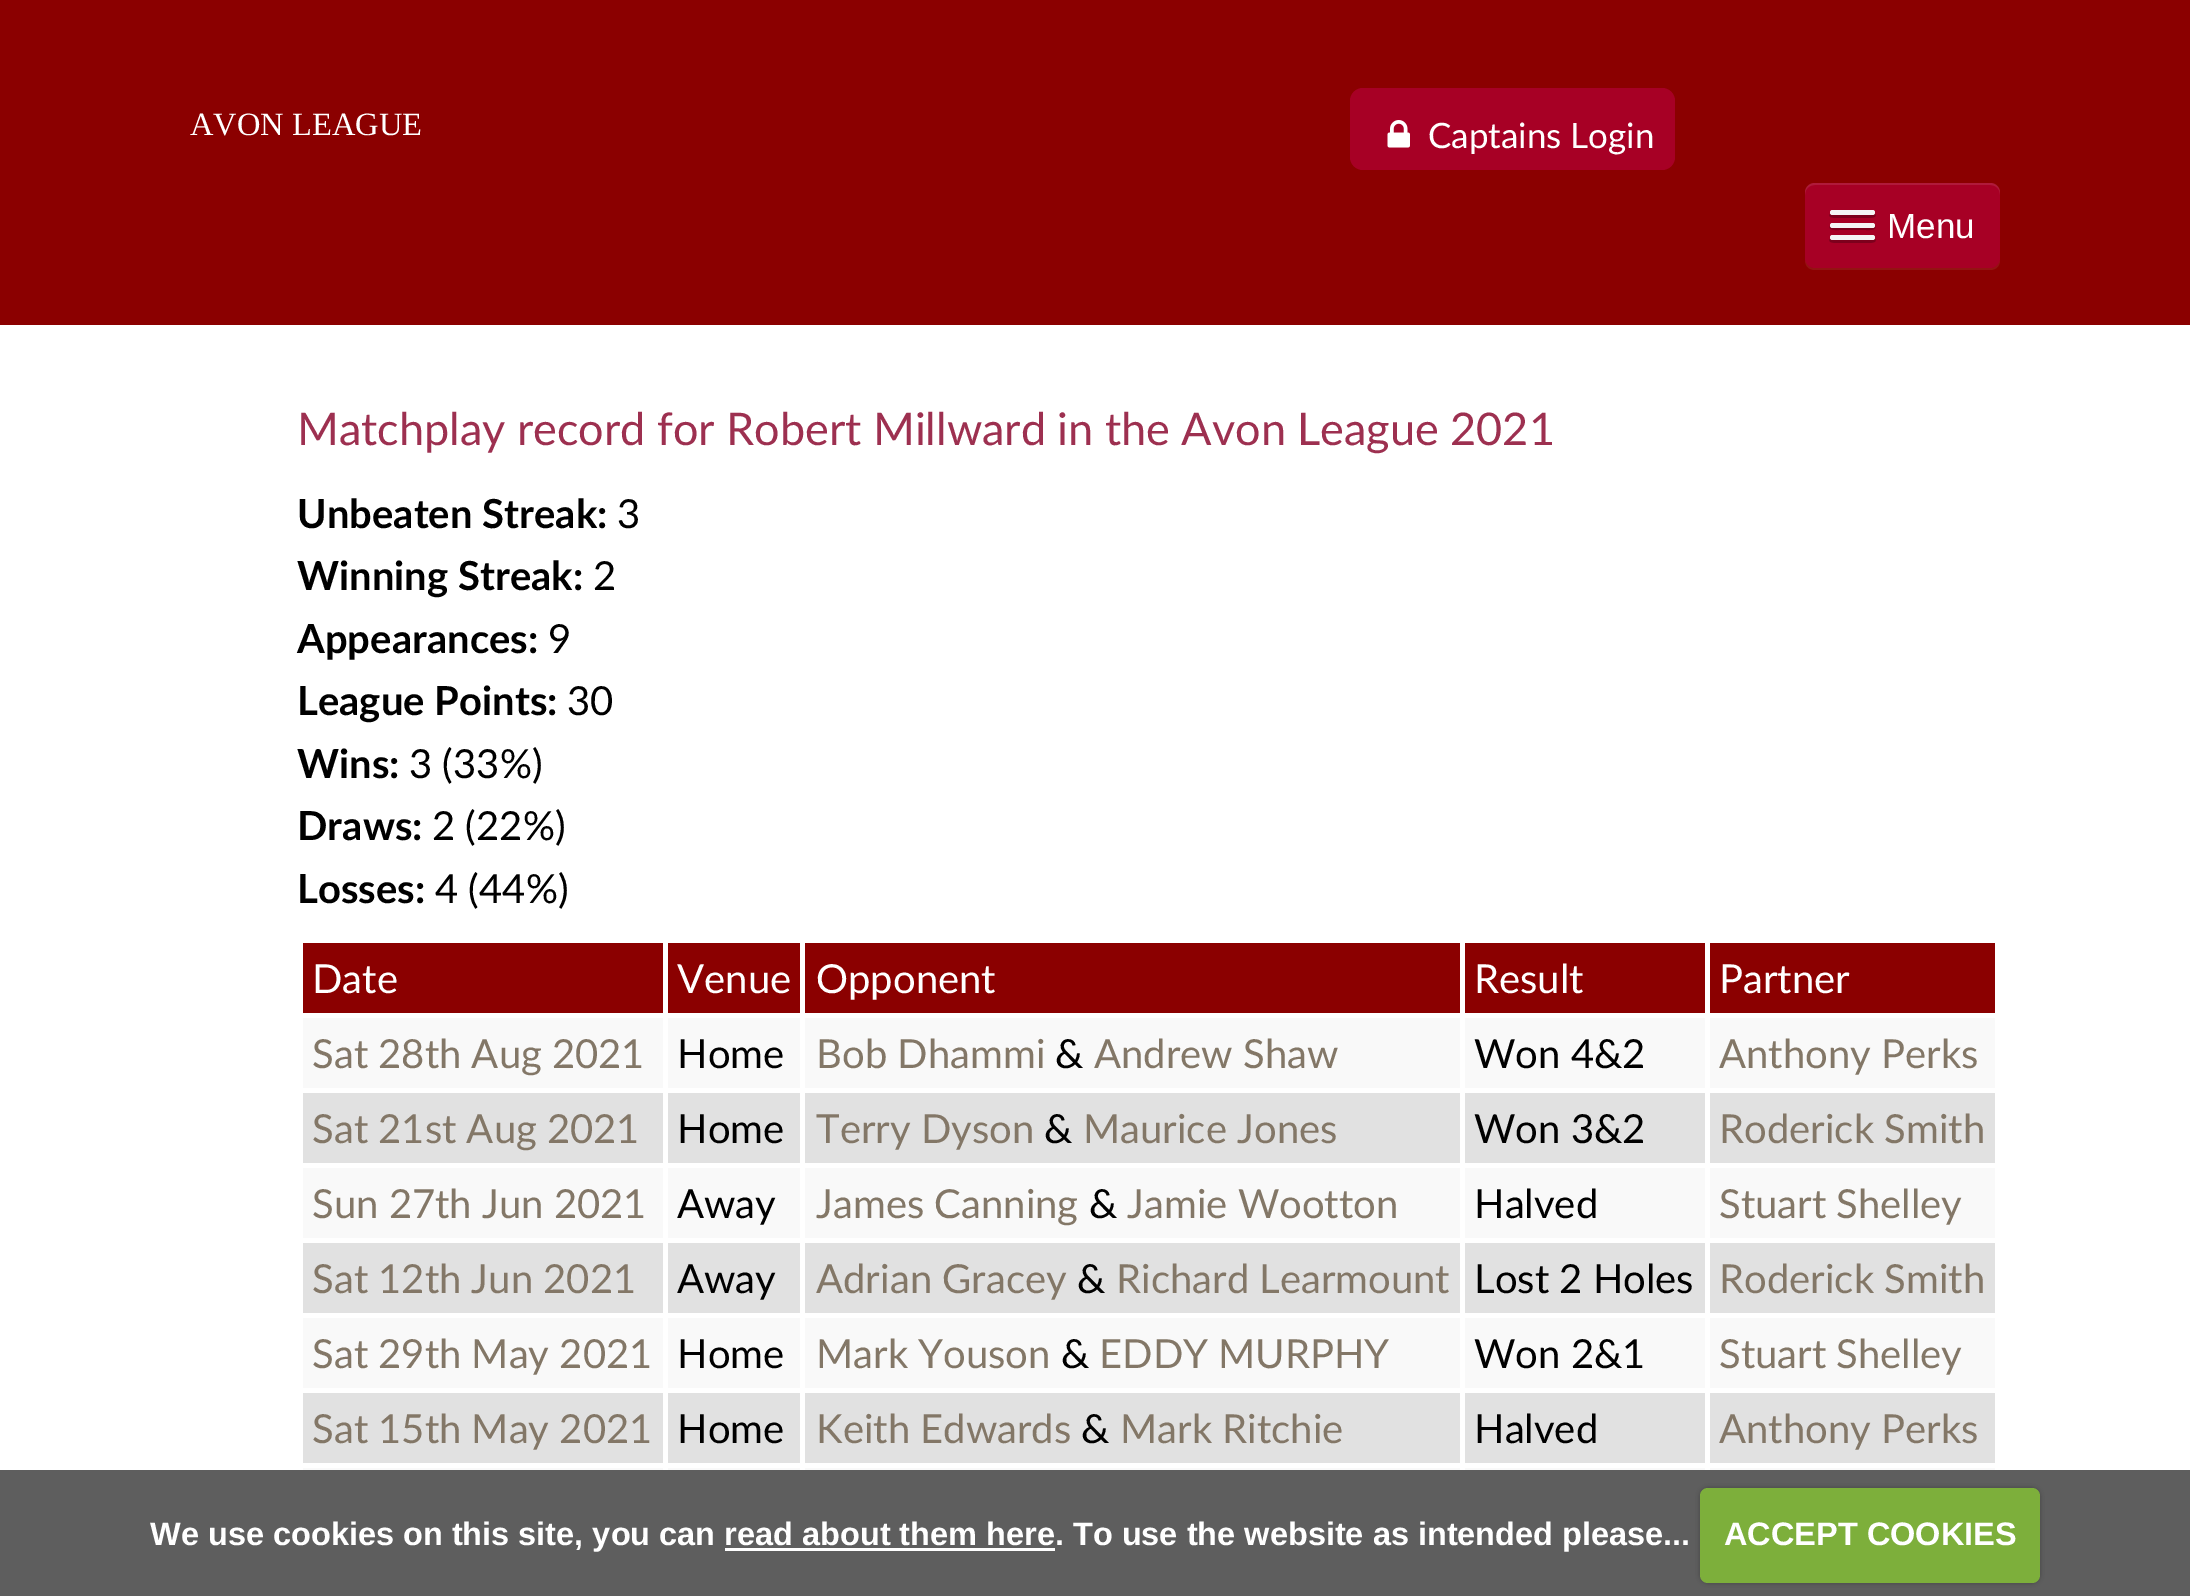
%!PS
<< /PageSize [2190 1596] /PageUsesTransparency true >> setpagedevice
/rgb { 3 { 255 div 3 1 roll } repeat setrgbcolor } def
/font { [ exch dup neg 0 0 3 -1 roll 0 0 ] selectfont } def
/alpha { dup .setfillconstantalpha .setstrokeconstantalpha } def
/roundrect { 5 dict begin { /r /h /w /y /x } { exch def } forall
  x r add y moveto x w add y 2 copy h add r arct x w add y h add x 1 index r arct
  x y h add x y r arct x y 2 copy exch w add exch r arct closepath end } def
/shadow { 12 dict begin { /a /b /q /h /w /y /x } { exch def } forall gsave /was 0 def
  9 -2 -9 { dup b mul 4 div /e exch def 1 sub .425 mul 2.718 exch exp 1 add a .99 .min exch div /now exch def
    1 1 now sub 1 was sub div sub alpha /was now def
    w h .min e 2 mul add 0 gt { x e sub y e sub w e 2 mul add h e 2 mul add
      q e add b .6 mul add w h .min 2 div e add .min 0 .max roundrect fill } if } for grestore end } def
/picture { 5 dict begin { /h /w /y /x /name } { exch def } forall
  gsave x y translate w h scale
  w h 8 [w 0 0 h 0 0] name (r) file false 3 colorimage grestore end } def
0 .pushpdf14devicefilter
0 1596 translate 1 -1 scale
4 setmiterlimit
255 255 255 rgb
0 0 2190 1596 rectfill
94 94 94 rgb
0 1470 2190 126 rectfill
139 0 0 rgb
0 0 2190 325 rectfill
167 0 37 rgb
1350 88 325 82 13 roundrect fill
(img/1.rgb) 1387 120 23 28 picture
148 19 19 rgb
1805 258 moveto 1805 260 lineto 1805 266 1809 270 1815 270 curveto 1990 270 lineto 1996 270 2000 266 2000 260 curveto 2000 258 lineto 2000 263 1996 268 1990 268 curveto 1815 268 lineto 1809 268 1805 263 1805 258 curveto closepath fill
167 0 37 rgb
1805 183 195 85 10 roundrect fill
0.1 alpha
255 255 255 rgb
1815 185 moveto 1990 185 lineto 1996 185 2000 189 2000 195 curveto 2000 193 lineto 2000 187 1996 183 1990 183 curveto 1815 183 lineto 1809 183 1805 187 1805 193 curveto 1805 195 lineto 1805 189 1809 185 1815 185 curveto closepath fill
1 alpha
125 0 28 rgb
1830 214 moveto 1827 218 1835 218 1839 218 curveto 1866 218 lineto 1870 218 1878 218 1875 214 curveto 1873 215 lineto 1832 215 lineto closepath fill
245 245 245 rgb
1830 210 45 5 2.5 roundrect fill
125 0 28 rgb
1830 226 moveto 1827 231 1839 230 1839 230 curveto 1866 230 lineto 1866 230 1878 231 1875 226 curveto 1874 227 1873 228 1872 228 curveto 1832 228 lineto 1832 228 1831 227 1830 226 curveto closepath fill
245 245 245 rgb
1830 223 45 5 2.5 roundrect fill
125 0 28 rgb
1830 239 moveto 1827 243 1835 243 1839 243 curveto 1866 243 lineto 1870 243 1878 243 1875 239 curveto 1873 240 lineto 1832 240 lineto closepath fill
245 245 245 rgb
1830 235 45 5 2.5 roundrect fill
[
  [303 943 1692 70 139 0 0]
  [663 940 5 78 255 255 255]
  [800 940 5 78 255 255 255]
  [1460 940 5 78 255 255 255]
  [1705 940 5 78 255 255 255]
  [303 1018 360 70 249 249 249]
  [668 1018 132 70 249 249 249]
  [805 1018 655 70 249 249 249]
  [1465 1018 240 70 249 249 249]
  [1710 1018 285 70 249 249 249]
  [303 1093 1692 70 225 225 225]
  [663 1088 5 80 255 255 255]
  [800 1088 5 80 255 255 255]
  [1460 1088 5 80 255 255 255]
  [1705 1088 5 80 255 255 255]
  [303 1168 360 70 249 249 249]
  [668 1168 132 70 249 249 249]
  [805 1168 655 70 249 249 249]
  [1465 1168 240 70 249 249 249]
  [1710 1168 285 70 249 249 249]
  [303 1243 1692 70 225 225 225]
  [663 1238 5 80 255 255 255]
  [800 1238 5 80 255 255 255]
  [1460 1238 5 80 255 255 255]
  [1705 1238 5 80 255 255 255]
  [303 1318 360 70 249 249 249]
  [668 1318 132 70 249 249 249]
  [805 1318 655 70 249 249 249]
  [1465 1318 240 70 249 249 249]
  [1710 1318 285 70 249 249 249]
  [303 1393 1692 70 225 225 225]
  [663 1388 5 80 255 255 255]
  [800 1388 5 80 255 255 255]
  [1460 1388 5 80 255 255 255]
  [1705 1388 5 80 255 255 255]
  [303 1468 360 2 249 249 249]
  [668 1468 132 2 249 249 249]
  [805 1468 655 2 249 249 249]
  [1465 1468 240 2 249 249 249]
  [1710 1468 285 2 249 249 249]
] { aload pop rgb rectfill } forall
0 0 0 rgb
1700 1488 340 95 8 2.5 0.25 shadow
125 175 59 rgb
1700 1488 340 95 8 roundrect fill
255 255 255 rgb
725 1548 330 3 rectfill
/LiberationSerif-Regular 32.5 font
190 135 moveto (AVON LEAGUE) show
/Lato-Regular 35 font
1428 148 moveto (Captains Login) show
/LiberationSans-Regular 35 font
1887 238 moveto (Menu) show
/Lato-Regular 45 font
157 48 80 rgb
297 445 moveto (Matchplay record for Robert Millward in the Avon League 2021) show
/Lato-Bold 40 font
0 0 0 rgb
297 528 moveto (Unbeaten Streak:) show
/Lato-Regular 40 font
617 528 moveto (3) show
/Lato-Bold 40 font
297 590 moveto (Winning Streak:) show
/Lato-Regular 40 font
593 590 moveto (2) show
/Lato-Bold 40 font
297 653 moveto (Appearances:) show
/Lato-Regular 40 font
548 653 moveto (9) show
/Lato-Bold 40 font
297 715 moveto (League Points:) show
/Lato-Regular 40 font
567 715 moveto (30) show
/Lato-Bold 40 font
297 778 moveto (Wins:) show
/Lato-Regular 40 font
409 778 moveto (3 \(33%\)) show
/Lato-Bold 40 font
297 840 moveto (Draws:) show
/Lato-Regular 40 font
432 840 moveto (2 \(22%\)) show
/Lato-Bold 40 font
297 903 moveto (Losses:) show
/Lato-Regular 40 font
435 903 moveto (4 \(44%\)) show
255 255 255 rgb
[
  [(Date) 312 993]
  [(Venue) 677 993]
  [(Opponent) 816 993]
  [(Result) 1474 993]
  [(Partner) 1719 993]
] { aload pop moveto show } forall
131 119 103 rgb
312 1068 moveto (Sat 28th Aug 2021) show
0 0 0 rgb
677 1068 moveto (Home) show
131 119 103 rgb
816 1068 moveto (Bob Dhammi) show
0 0 0 rgb
1055 1068 moveto (&) show
131 119 103 rgb
1094 1068 moveto (Andrew Shaw) show
0 0 0 rgb
1474 1068 moveto (Won 4&2) show
131 119 103 rgb
1719 1068 moveto (Anthony Perks) show
312 1143 moveto (Sat 21st Aug 2021) show
0 0 0 rgb
677 1143 moveto (Home) show
131 119 103 rgb
816 1143 moveto (Terry Dyson) show
0 0 0 rgb
1044 1143 moveto (&) show
131 119 103 rgb
1083 1143 moveto (Maurice Jones) show
0 0 0 rgb
1474 1143 moveto (Won 3&2) show
131 119 103 rgb
1719 1143 moveto (Roderick Smith) show
312 1218 moveto (Sun 27th Jun 2021) show
0 0 0 rgb
677 1218 moveto (Away) show
131 119 103 rgb
816 1218 moveto (James Canning) show
0 0 0 rgb
1089 1218 moveto (&) show
131 119 103 rgb
1127 1218 moveto (Jamie Wootton) show
0 0 0 rgb
1474 1218 moveto (Halved) show
131 119 103 rgb
1719 1218 moveto (Stuart Shelley) show
312 1293 moveto (Sat 12th Jun 2021) show
0 0 0 rgb
677 1293 moveto (Away) show
131 119 103 rgb
816 1293 moveto (Adrian Gracey) show
0 0 0 rgb
1077 1293 moveto (&) show
131 119 103 rgb
1116 1293 moveto (Richard Learmount) show
0 0 0 rgb
1474 1293 moveto (Lost 2 Holes) show
131 119 103 rgb
1719 1293 moveto (Roderick Smith) show
312 1368 moveto (Sat 29th May 2021) show
0 0 0 rgb
677 1368 moveto (Home) show
131 119 103 rgb
816 1368 moveto (Mark Youson) show
0 0 0 rgb
1061 1368 moveto (&) show
131 119 103 rgb
1099 1368 moveto (EDDY MURPHY) show
0 0 0 rgb
1474 1368 moveto (Won 2&1) show
131 119 103 rgb
1719 1368 moveto (Stuart Shelley) show
312 1443 moveto (Sat 15th May 2021) show
0 0 0 rgb
677 1443 moveto (Home) show
131 119 103 rgb
816 1443 moveto (Keith Edwards) show
0 0 0 rgb
1081 1443 moveto (&) show
131 119 103 rgb
1120 1443 moveto (Mark Ritchie) show
0 0 0 rgb
1474 1443 moveto (Halved) show
131 119 103 rgb
1719 1443 moveto (Anthony Perks) show
/LiberationSans-Bold 32.5 font
255 255 255 rgb
150 1545 moveto (We use cookies on this site, you can read about them here. To use the website as intended please...) show
1724 1545 moveto (ACCEPT COOKIES) show
.poppdf14devicefilter showpage
